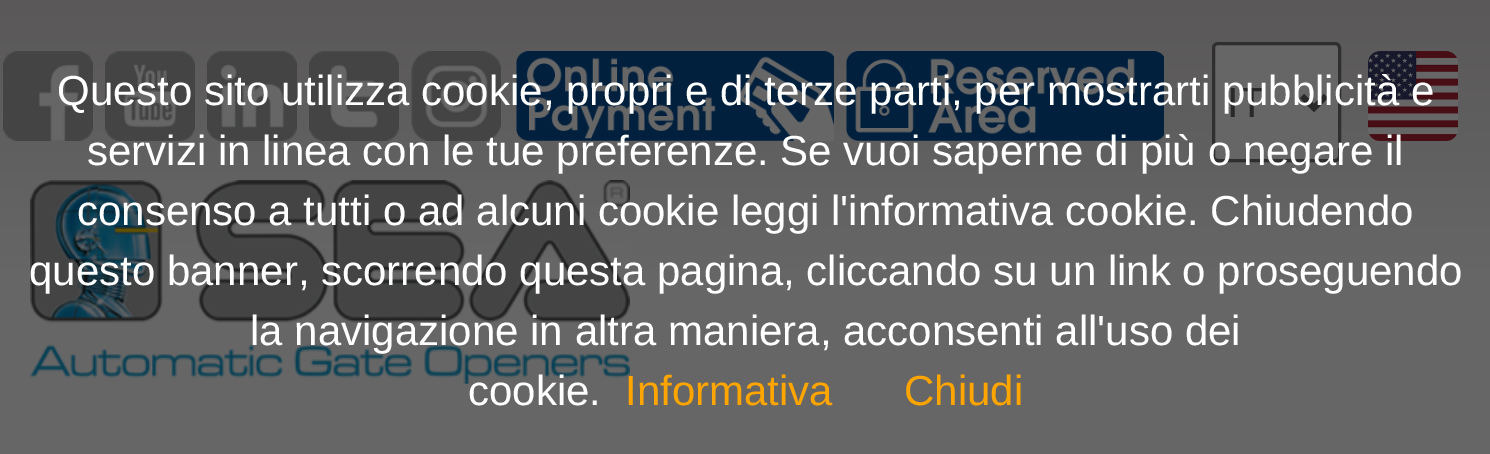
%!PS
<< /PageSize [1490 454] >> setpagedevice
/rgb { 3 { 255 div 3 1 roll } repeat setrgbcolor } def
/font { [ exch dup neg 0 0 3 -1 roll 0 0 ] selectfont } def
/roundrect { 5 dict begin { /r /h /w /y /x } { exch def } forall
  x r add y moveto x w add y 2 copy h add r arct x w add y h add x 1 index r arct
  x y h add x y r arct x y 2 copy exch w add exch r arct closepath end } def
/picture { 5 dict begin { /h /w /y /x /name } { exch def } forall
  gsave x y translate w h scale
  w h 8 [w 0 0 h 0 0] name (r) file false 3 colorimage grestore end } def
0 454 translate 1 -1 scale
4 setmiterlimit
255 255 255 rgb
0 0 1490 454 rectfill
gsave 0 0 moveto 1490 0 lineto 1490 454 lineto 0 454 lineto closepath clip newpath
<< /ShadingType 2 /ColorSpace /DeviceRGB /Coords [746 0 746 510] /Extend [true true] /Function << /FunctionType 3 /Domain [0 1] /Functions [<< /FunctionType 2 /Domain [0 1] /C0 [0.353 0.345 0.345] /C1 [0.4 0.4 0.4] /N 1 >> << /FunctionType 2 /Domain [0 1] /C0 [0.4 0.4 0.4] /C1 [0.4 0.4 0.4] /N 1 >>] /Bounds [0.53] /Encode [0 1 0 1] >> >> shfill grestore
(img/1.rgb) 3 51 90 90 picture
(img/2.rgb) 105 51 90 90 picture
(img/3.rgb) 207 51 90 90 picture
(img/4.rgb) 309 51 90 90 picture
(img/5.rgb) 411 51 90 90 picture
(img/6.rgb) 516 51 318 90 picture
(img/7.rgb) 846 51 318 90 picture
102 102 102 rgb
1213.5 43.5 126 117 4.5 roundrect gsave fill grestore
47 47 47 rgb
3 setlinewidth
stroke
41 41 41 rgb
6 setlinewidth
1302 96 moveto 1314 108 lineto 1326 96 lineto stroke
(img/8.rgb) 1368 51 90 90 picture
(img/9.rgb) 30 180 600 204 picture
/LiberationSans-Regular 42 font
255 255 255 rgb
[
  [(servizi in linea con le tue preferenze. Se vuoi saperne di più o negare il) 87 165]
  [(consenso a tutti o ad alcuni cookie leggi l'informativa cookie. Chiudendo) 77 225]
  [(questo banner, scorrendo questa pagina, cliccando su un link o proseguendo) 29 285]
  [(la navigazione in altra maniera, acconsenti all'uso dei) 250 345]
  [(cookie.) 468 405]
] { aload pop moveto show } forall
255 165 0 rgb
625 405 moveto (Informativa) show
904 405 moveto (Chiudi) show
41 41 41 rgb
1227 117 moveto (IT) show
255 255 255 rgb
57 105 moveto (Questo sito utilizza cookie, propri e di terze parti, per mostrarti pubblicità e) show
showpage
